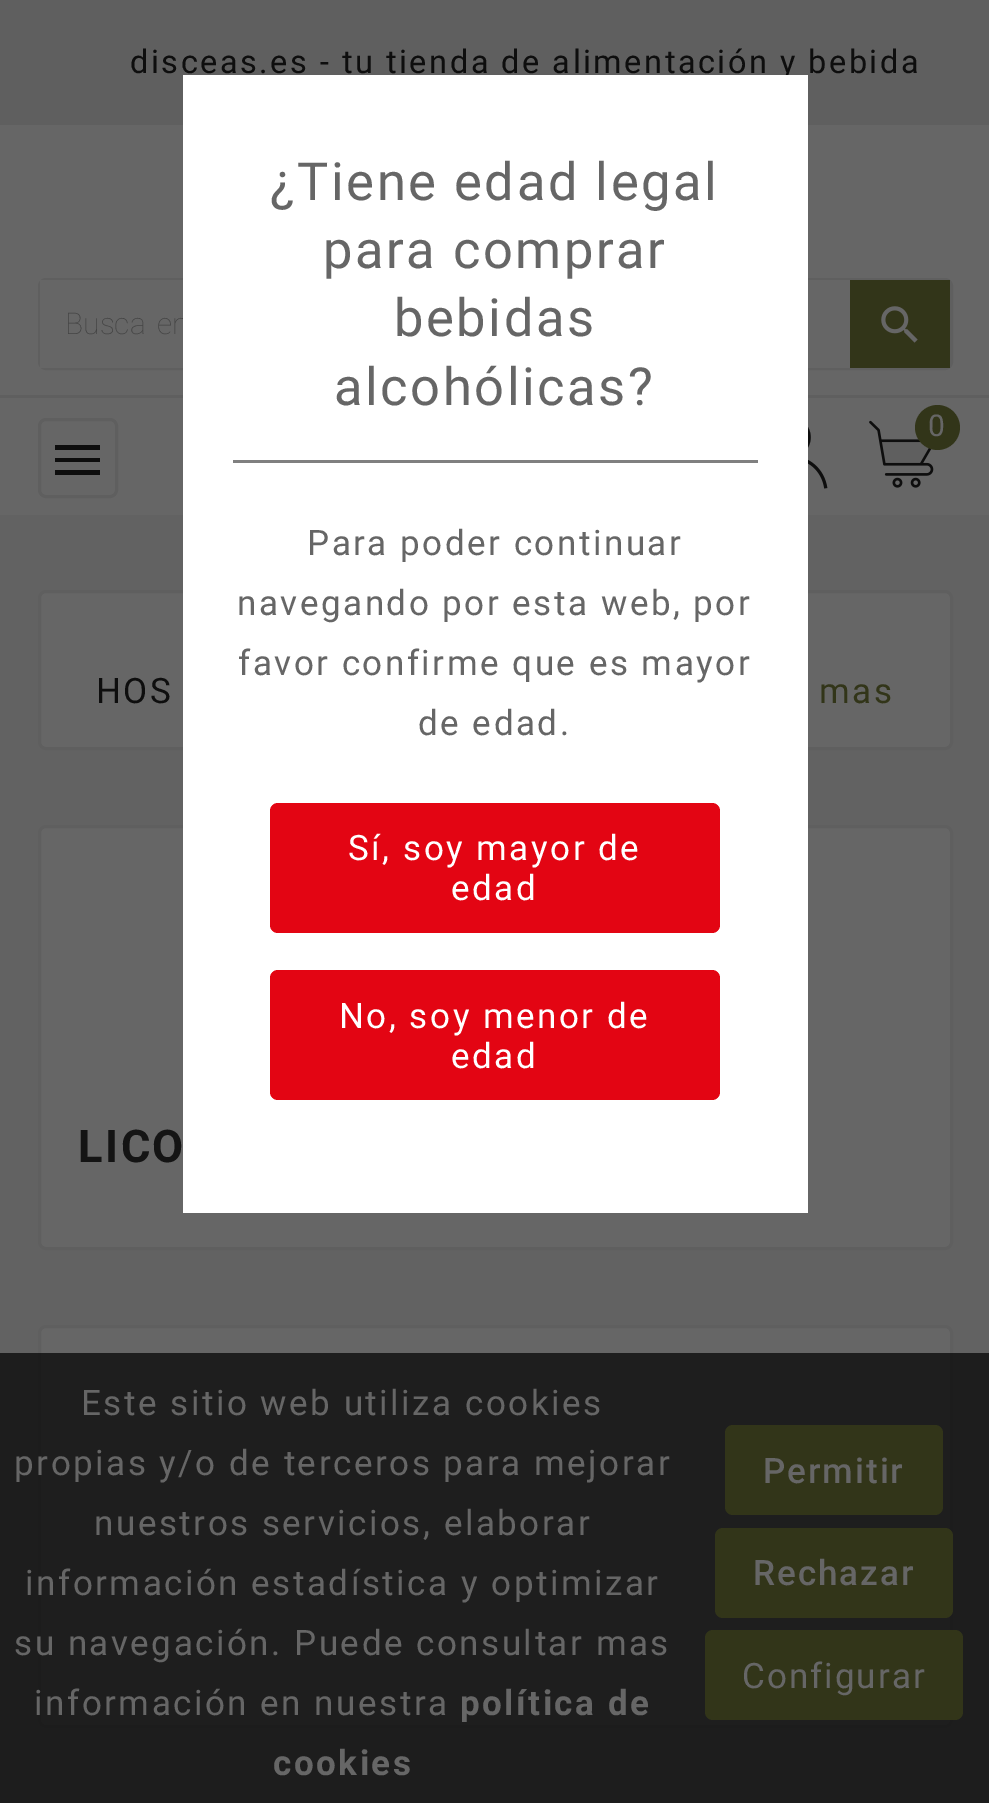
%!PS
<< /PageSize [989 1803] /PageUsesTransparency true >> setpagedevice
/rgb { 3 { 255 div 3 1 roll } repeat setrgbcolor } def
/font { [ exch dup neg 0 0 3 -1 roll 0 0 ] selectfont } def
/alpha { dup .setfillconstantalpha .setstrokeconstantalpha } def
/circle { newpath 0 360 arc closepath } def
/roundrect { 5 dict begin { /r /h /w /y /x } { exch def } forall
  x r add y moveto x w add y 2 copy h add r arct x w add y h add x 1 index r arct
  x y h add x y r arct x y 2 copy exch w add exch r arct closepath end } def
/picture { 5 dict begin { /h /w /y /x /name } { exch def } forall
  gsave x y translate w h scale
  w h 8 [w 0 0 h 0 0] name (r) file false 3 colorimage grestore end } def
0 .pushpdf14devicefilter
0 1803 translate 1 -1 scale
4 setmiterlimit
98 98 98 rgb
0 0 989 1803 rectfill
102 102 102 rgb
0 125 989 390 rectfill
95 95 95 rgb
0 0 989 125 rectfill
3 setlinewidth
39.5 279.5 912 89 6.5 roundrect stroke
102 102 102 rgb
40 280 810 88 rectfill
50 53 25 rgb
850 280 100 88 rectfill
(img/1.rgb) 881 306 37 37 picture
95 95 95 rgb
0 395 989 3 rectfill
39.5 419.5 77 77 6.5 roundrect stroke
14 14 14 rgb
55 445 moveto 100 445 lineto 100 450 lineto 55 450 lineto closepath 55 462 moveto 55 458 lineto 100 458 lineto 100 462 lineto closepath 55 475 moveto 55 470 lineto 100 470 lineto 100 475 lineto closepath fill
(img/2.rgb) 808 427 20 62 picture
(img/3.rgb) 869 420 65 68 picture
50 53 25 rgb
937.5 427.5 22.5 circle fill
102 102 102 rgb
39.5 591.5 912 157 6.5 roundrect gsave fill grestore
95 95 95 rgb
stroke
102 102 102 rgb
39.5 826.5 912 422 6.5 roundrect gsave fill grestore
95 95 95 rgb
stroke
102 102 102 rgb
39.5 1326.5 912 400 6.5 roundrect gsave fill grestore
95 95 95 rgb
stroke
99 99 99 rgb
78 1493 835 157 8 roundrect fill
0.7 alpha
0 0 0 rgb
0 1353 989 450 rectfill
1 alpha
50 53 25 rgb
725 1425 218 90 8 roundrect fill
715 1528 238 90 8 roundrect fill
705 1630 258 90 8 roundrect fill
/Roboto-Regular 32.5 font
14 14 14 rgb
130 73 moveto 2.5 0 (disceas.es - tu tienda de alimentación y bebida) ashow
/Roboto-Thin 30 font
68 68 68 rgb
65 334 moveto 4 0 32 (Busca en) widthshow
/Roboto-Regular 30 font
102 102 102 rgb
928 436 moveto 2.5 0 (0) ashow
/Roboto-Regular 35 font
14 14 14 rgb
96 703 moveto 2.5 0 (HOS) ashow
50 53 25 rgb
819 703 moveto 2.5 0 (mas) ashow
/Roboto-Bold 45 font
20 20 20 rgb
78 1162 moveto 2.5 0 (LICO) ashow
255 255 255 rgb
183 75 625 1138 rectfill
128 128 128 rgb
233 460 525 3 rectfill
/Roboto-Regular 52.5 font
102 102 102 rgb
270 200 moveto 2.5 0 (¿Tiene edad legal) ashow
323 268 moveto 2.5 0 (para comprar) ashow
394 336 moveto 2.5 0 (bebidas) ashow
334 405 moveto 2.5 0 (alcohólicas?) ashow
/Roboto-Regular 35 font
307 555 moveto 2.5 0 (Para poder continuar) ashow
237 615 moveto 2.5 0 (navegando por esta web, por) ashow
238 675 moveto 2.5 0 (favor confirme que es mayor) ashow
418 735 moveto 2.5 0 (de edad.) ashow
227 5 19 rgb
270 803 450 130 8 roundrect fill
255 255 255 rgb
348 860 moveto 2.5 0 (Sí, soy mayor de) ashow
451 900 moveto 2.5 0 (edad) ashow
227 5 19 rgb
270 970 450 130 8 roundrect fill
255 255 255 rgb
339 1028 moveto 2.5 0 (No, soy menor de) ashow
451 1068 moveto 2.5 0 (edad) ashow
102 102 102 rgb
81 1415 moveto 2.5 0 (Este sitio web utiliza cookies) ashow
14 1475 moveto 2.5 0 (propias y/o de terceros para mejorar) ashow
94 1535 moveto 2.5 0 (nuestros servicios, elaborar) ashow
25 1595 moveto 2.5 0 (información estadística y optimizar) ashow
14 1655 moveto 2.5 0 (su navegación. Puede consultar mas) ashow
34 1715 moveto 2.5 0 (información en nuestra) ashow
/Roboto-Bold 35 font
460 1715 moveto 2.5 0 (política de) ashow
273 1775 moveto 2.5 0 (cookies) ashow
/Roboto-Medium 35 font
763 1483 moveto 2 0 (Permitir) ashow
753 1585 moveto 2 0 (Rechazar) ashow
/Roboto-Regular 35 font
742 1688 moveto 2 0 (Configurar) ashow
.poppdf14devicefilter showpage
